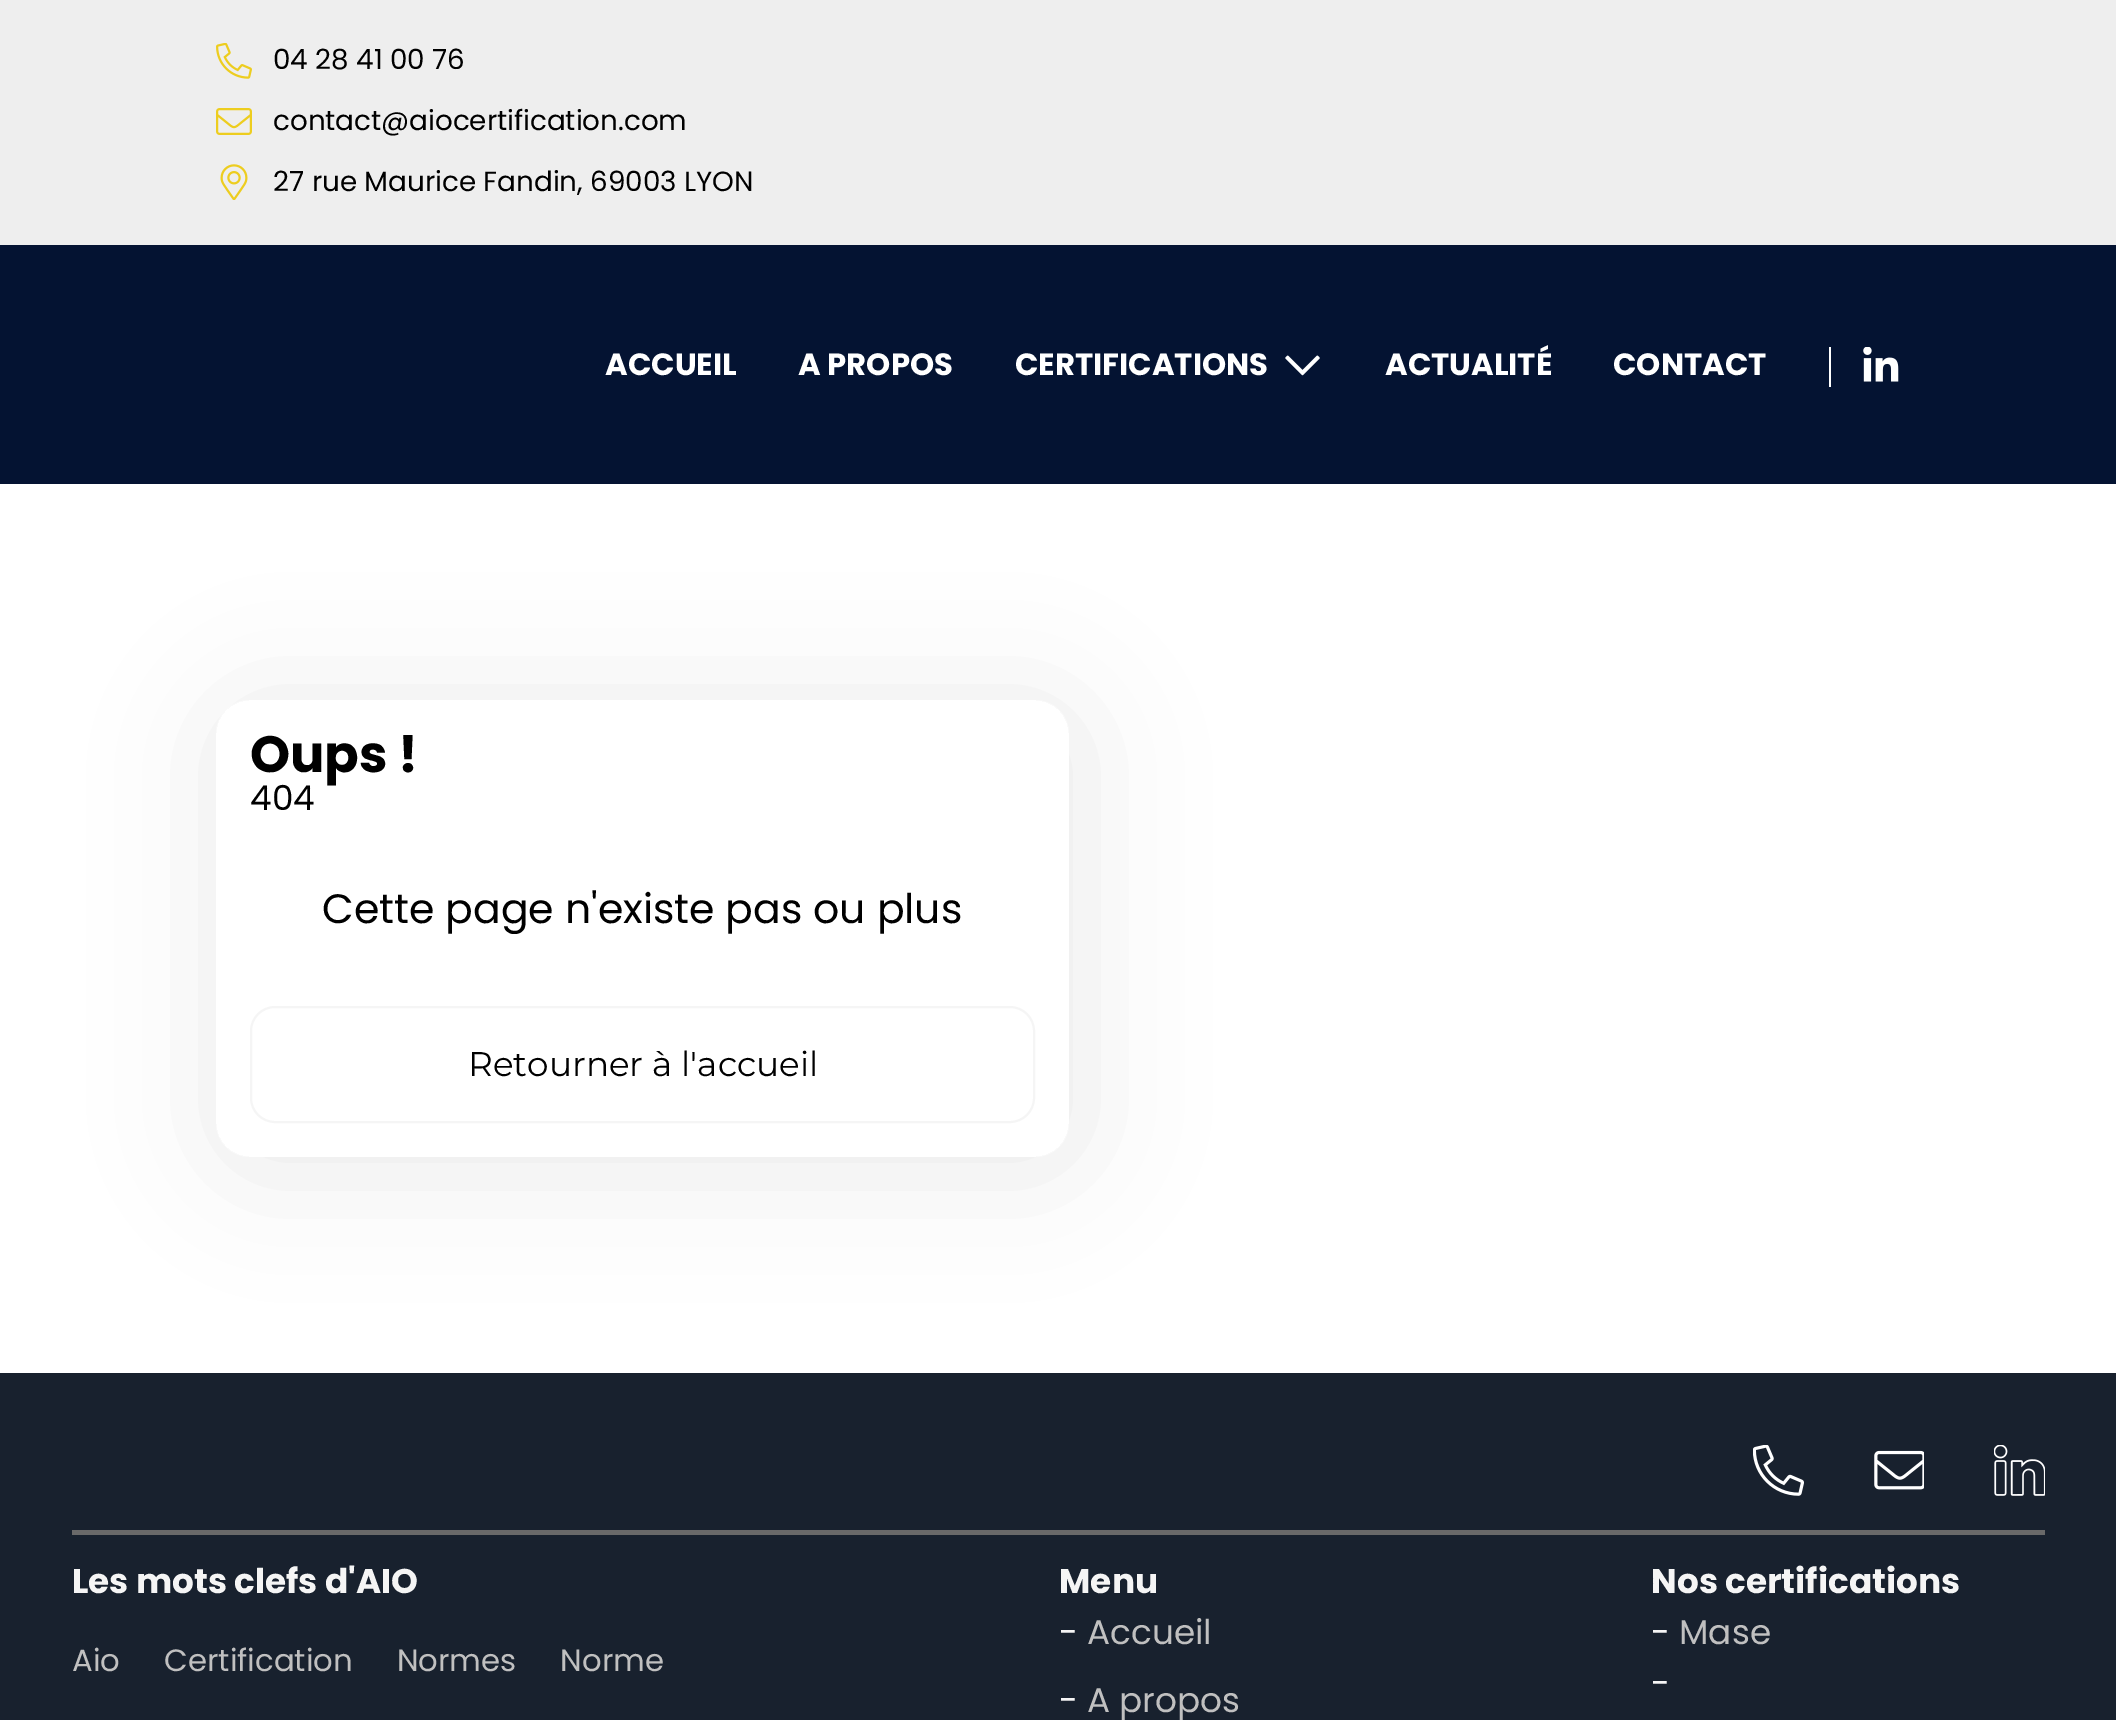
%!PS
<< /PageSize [2116 1720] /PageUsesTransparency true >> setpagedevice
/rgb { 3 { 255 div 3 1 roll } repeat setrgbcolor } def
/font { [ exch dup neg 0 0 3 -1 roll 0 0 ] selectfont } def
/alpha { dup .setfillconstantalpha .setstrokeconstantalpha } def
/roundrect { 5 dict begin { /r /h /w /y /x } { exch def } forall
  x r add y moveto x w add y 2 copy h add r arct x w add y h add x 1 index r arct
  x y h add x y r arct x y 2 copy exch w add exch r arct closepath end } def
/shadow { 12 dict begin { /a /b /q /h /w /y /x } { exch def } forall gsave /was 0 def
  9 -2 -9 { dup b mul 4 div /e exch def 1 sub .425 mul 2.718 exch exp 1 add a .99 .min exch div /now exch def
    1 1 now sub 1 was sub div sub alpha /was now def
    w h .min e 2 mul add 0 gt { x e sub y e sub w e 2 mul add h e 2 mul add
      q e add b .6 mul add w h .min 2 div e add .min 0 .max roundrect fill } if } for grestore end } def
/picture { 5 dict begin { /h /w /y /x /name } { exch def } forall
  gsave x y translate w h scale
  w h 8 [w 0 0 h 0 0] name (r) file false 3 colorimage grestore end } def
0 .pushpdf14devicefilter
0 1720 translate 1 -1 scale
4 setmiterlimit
255 255 255 rgb
0 0 2116 1720 rectfill
238 238 238 rgb
0 0 2116 245 rectfill
(img/1.rgb) 216 43 36 36 picture
(img/2.rgb) 216 108 36 27 picture
(img/3.rgb) 220 164 28 36 picture
4 19 50 rgb
0 245 2116 239 rectfill
(img/4.rgb) 1285 355 35 21 picture
255 255 255 rgb
1829 347 2 40 rectfill
(img/5.rgb) 1863 347 36 35 picture
gsave
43 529 moveto 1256 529 lineto 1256 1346 lineto 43 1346 lineto closepath 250 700 moveto 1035 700 lineto 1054 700 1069 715 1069 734 curveto 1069 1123 lineto 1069 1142 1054 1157 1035 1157 curveto 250 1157 lineto 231 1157 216 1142 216 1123 curveto 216 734 lineto 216 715 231 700 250 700 curveto closepath eoclip newpath
0 0 0 rgb
212 698 875 479 45 56 0.07 shadow
grestore
0.5 alpha
216 700 853 457 34 roundrect fill
1 alpha
245 245 245 rgb
2 setlinewidth
251 1007 783 115 24 roundrect stroke
24 33 46 rgb
0 1373 2116 347 rectfill
105 105 105 rgb
72 1530 1973 5 rectfill
(img/6.rgb) 1753 1445 51 51 picture
(img/7.rgb) 1874 1450 50 40 picture
(img/8.rgb) 1994 1445 51 51 picture
/Poppins-Regular 27.75 font
0 0 0 rgb
[
  [(04 28 41 00 76) 273 69]
  [(contact@aiocertification.com) 273 130]
  [(27 rue Maurice Fandin, 69003 LYON) 273 191]
] { aload pop moveto show } forall
/Poppins-Bold 30.75 font
255 255 255 rgb
[
  [(ACCUEIL) 605 375]
  [(A PROPOS) 798 375]
  [(CERTIFICATIONS) 1015 375]
  [(ACTUALITÉ) 1385 375]
  [(CONTACT) 1613 375]
] { aload pop moveto show } forall
/Poppins-Bold 51 font
0 0 0 rgb
250 772 moveto (Oups !) show
/Poppins-Regular 34.25 font
250 810 moveto (404) show
/Poppins-Regular 41 font
322 923 moveto (Cette page n'existe pas ou plus) show
/Montserrat-Regular 34.25 font
468 1076 moveto (Retourner à l'accueil) show
/Poppins-Bold 34.25 font
245 245 245 rgb
72 1593 moveto (Les mots clefs d'AIO) show
/Poppins-Regular 30.75 font
192 192 192 rgb
72 1671 moveto 36 0 32 (Aio Certification Normes Norme) widthshow
/Poppins-Bold 34.25 font
245 245 245 rgb
1059 1593 moveto (Menu) show
/Poppins-Regular 34.25 font
1059 1644 moveto (-) show
192 192 192 rgb
1087 1644 moveto (Accueil) show
245 245 245 rgb
1059 1712 moveto (-) show
192 192 192 rgb
1087 1712 moveto (A propos) show
/Poppins-Bold 34.25 font
245 245 245 rgb
1651 1593 moveto (Nos certifications) show
/Poppins-Regular 34.25 font
1651 1644 moveto (-) show
192 192 192 rgb
1679 1644 moveto (Mase) show
245 245 245 rgb
1651 1695 moveto (-) show
.poppdf14devicefilter showpage
